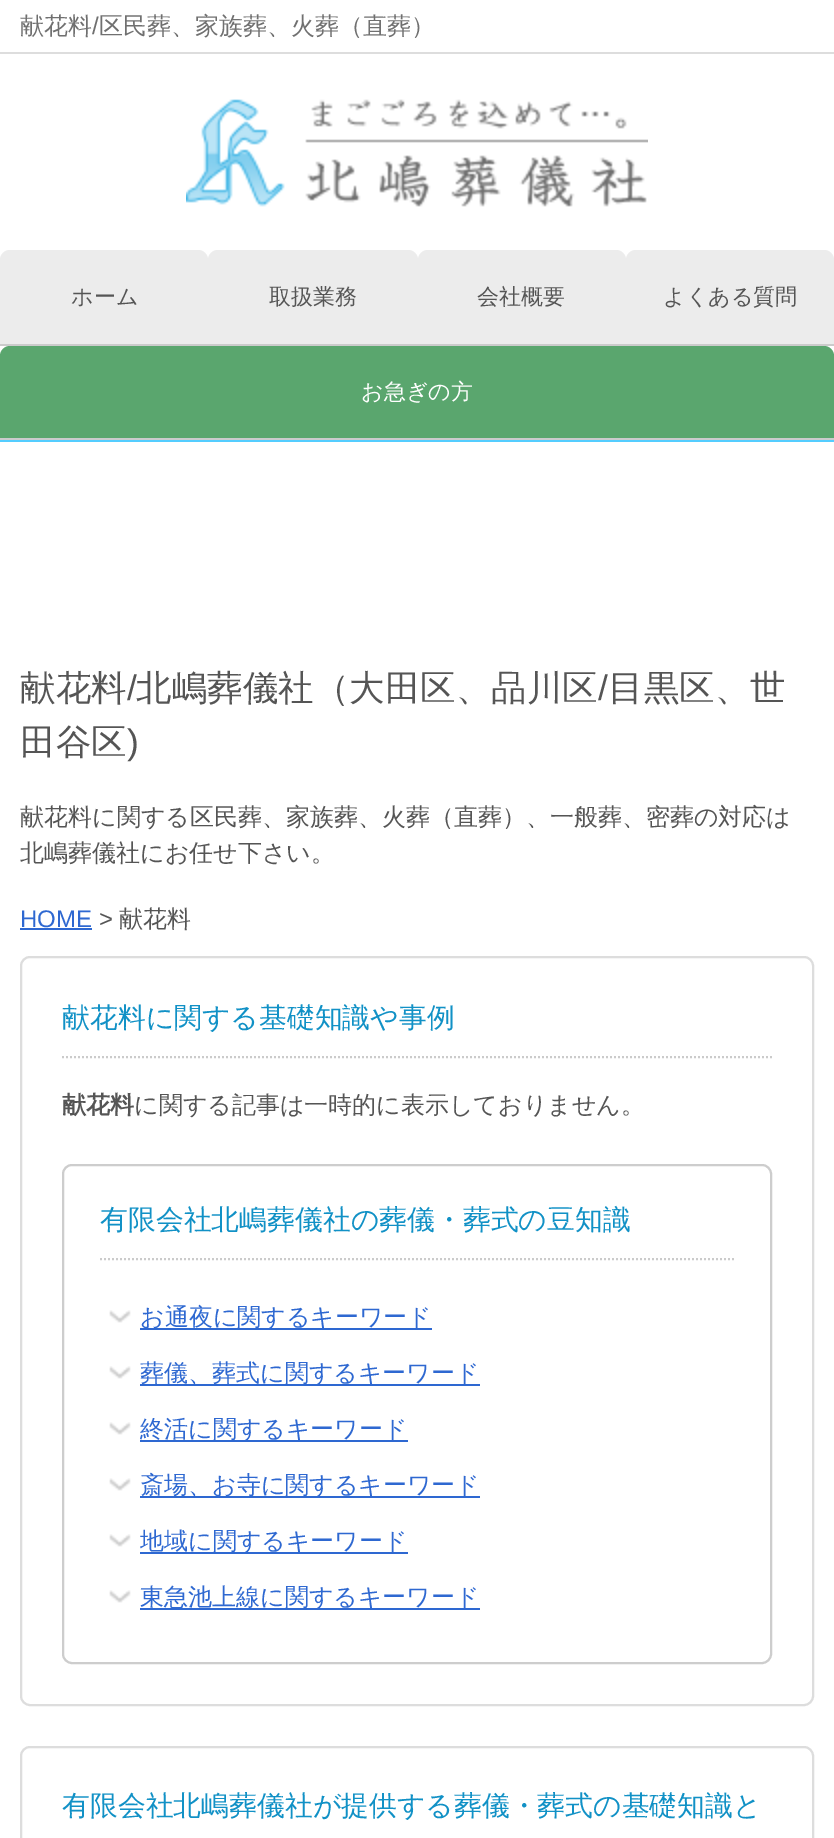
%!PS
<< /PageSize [834 1838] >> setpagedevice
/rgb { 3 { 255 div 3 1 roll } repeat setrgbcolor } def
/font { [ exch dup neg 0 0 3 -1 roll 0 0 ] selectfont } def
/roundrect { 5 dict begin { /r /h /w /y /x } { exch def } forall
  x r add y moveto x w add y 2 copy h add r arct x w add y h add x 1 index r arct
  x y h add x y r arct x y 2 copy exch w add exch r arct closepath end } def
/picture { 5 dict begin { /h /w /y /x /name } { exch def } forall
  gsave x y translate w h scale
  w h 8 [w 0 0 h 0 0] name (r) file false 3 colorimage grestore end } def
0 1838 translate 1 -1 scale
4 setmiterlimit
255 255 255 rgb
0 0 834 1838 rectfill
84 205 255 rgb
0 440 834 2 rectfill
221 221 221 rgb
0 52 834 2 rectfill
(img/1.rgb) 186 99 462 108 picture
203 203 203 rgb
0 344 834 2 rectfill
236 236 236 rgb
10 250 moveto 198 250 lineto 203.5 250 208 254.5 208 260 curveto 208 344 lineto 0 344 lineto 0 260 lineto 0 254.5 4.5 250 10 250 curveto closepath fill
218 250 moveto 408 250 lineto 413.5 250 418 254.5 418 260 curveto 418 344 lineto 208 344 lineto 208 260 lineto 208 254.5 212.5 250 218 250 curveto closepath fill
428 250 moveto 616 250 lineto 621.5 250 626 254.5 626 260 curveto 626 344 lineto 418 344 lineto 418 260 lineto 418 254.5 422.5 250 428 250 curveto closepath fill
636 250 moveto 824 250 lineto 829.5 250 834 254.5 834 260 curveto 834 344 lineto 626 344 lineto 626 260 lineto 626 254.5 630.5 250 636 250 curveto closepath fill
203 203 203 rgb
0 438 834 2 rectfill
90 166 110 rgb
10 346 moveto 824 346 lineto 829.5 346 834 350.5 834 356 curveto 834 438 lineto 0 438 lineto 0 356 lineto 0 350.5 4.5 346 10 346 curveto closepath fill
46 104 209 rgb
20 928 72 2 rectfill
221 221 221 rgb
2 setlinewidth
21 957 792 748 9 roundrect stroke
203 203 203 rgb
[2 2] 0 setdash
62 1057 moveto 772 1057 lineto stroke
205 205 205 rgb
[] 0 setdash
63 1165 708 498 9 roundrect stroke
203 203 203 rgb
[2 2] 0 setdash
100 1259 moveto 734 1259 lineto stroke
(img/2.rgb) 109 1310 22 13 picture
46 104 209 rgb
140 1328 292 2 rectfill
(img/2.rgb) 109 1366 22 13 picture
140 1384 340 2 rectfill
(img/2.rgb) 109 1422 22 13 picture
140 1440 268 2 rectfill
(img/2.rgb) 109 1478 22 13 picture
140 1496 340 2 rectfill
(img/2.rgb) 109 1534 22 13 picture
140 1552 268 2 rectfill
(img/2.rgb) 109 1590 22 13 picture
140 1608 340 2 rectfill
221 221 221 rgb
[] 0 setdash
21 1747 792 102 9 roundrect stroke
/WenQuanYiZenHei-Medium 24 font
112 112 112 rgb
20 34 moveto (献花料) show
/LiberationSans-Regular 24 font
92 34 moveto (/) show
/WenQuanYiZenHei-Medium 24 font
99 34 moveto (区民葬、家族葬、火葬（直葬）) show
/WenQuanYiZenHei-Medium 22 font
85 85 85 rgb
[
  [(ホーム) 71 304]
  [(取扱業務) 269 304]
  [(会社概要) 477 304]
  [(よくある質問) 663 304]
] { aload pop moveto show } forall
255 255 255 rgb
361 399 moveto (お急ぎの方) show
/WenQuanYiZenHei-Medium 35.5 font
85 85 85 rgb
20 700 moveto (献花料) show
/LiberationSans-Regular 35.5 font
127 700 moveto (/) show
/WenQuanYiZenHei-Medium 35.5 font
136 700 moveto (北嶋葬儀社（大田区、品川区) show
/LiberationSans-Regular 35.5 font
598 700 moveto (/) show
/WenQuanYiZenHei-Medium 35.5 font
608 700 moveto (目黒区、世) show
20 754 moveto (田谷区) show
/LiberationSans-Regular 35.5 font
127 754 moveto (\)) show
/WenQuanYiZenHei-Medium 24 font
20 825 moveto (献花料に関する区民葬、家族葬、火葬（直葬）、一般葬、密葬の対応は) show
20 861 moveto (北嶋葬儀社にお任せ下さい。) show
/LiberationSans-Regular 24 font
46 104 209 rgb
20 927 moveto (HOME) show
85 85 85 rgb
99 927 moveto (>) show
/WenQuanYiZenHei-Medium 24 font
119 927 moveto (献花料) show
/WenQuanYiZenHei-Medium 27.85 font
17 145 198 rgb
62 1027 moveto (献花料に関する基礎知識や事例) show
/WenQuanYiZenHei-Bold 24 font
85 85 85 rgb
62 1113 moveto (献花料) show
/WenQuanYiZenHei-Medium 24 font
134 1113 moveto (に関する記事は一時的に表示しておりません。) show
/WenQuanYiZenHei-Medium 27.85 font
17 145 198 rgb
100 1229 moveto (有限会社北嶋葬儀社の葬儀・葬式の豆知識) show
/WenQuanYiZenHei-Medium 24 font
46 104 209 rgb
[
  [(お通夜に関するキーワード) 140 1325]
  [(葬儀、葬式に関するキーワード) 140 1381]
  [(終活に関するキーワード) 140 1437]
  [(斎場、お寺に関するキーワード) 140 1493]
  [(地域に関するキーワード) 140 1549]
  [(東急池上線に関するキーワード) 140 1605]
] { aload pop moveto show } forall
/WenQuanYiZenHei-Medium 27.85 font
17 145 198 rgb
62 1815 moveto (有限会社北嶋葬儀社が提供する葬儀・葬式の基礎知識と) show
showpage
